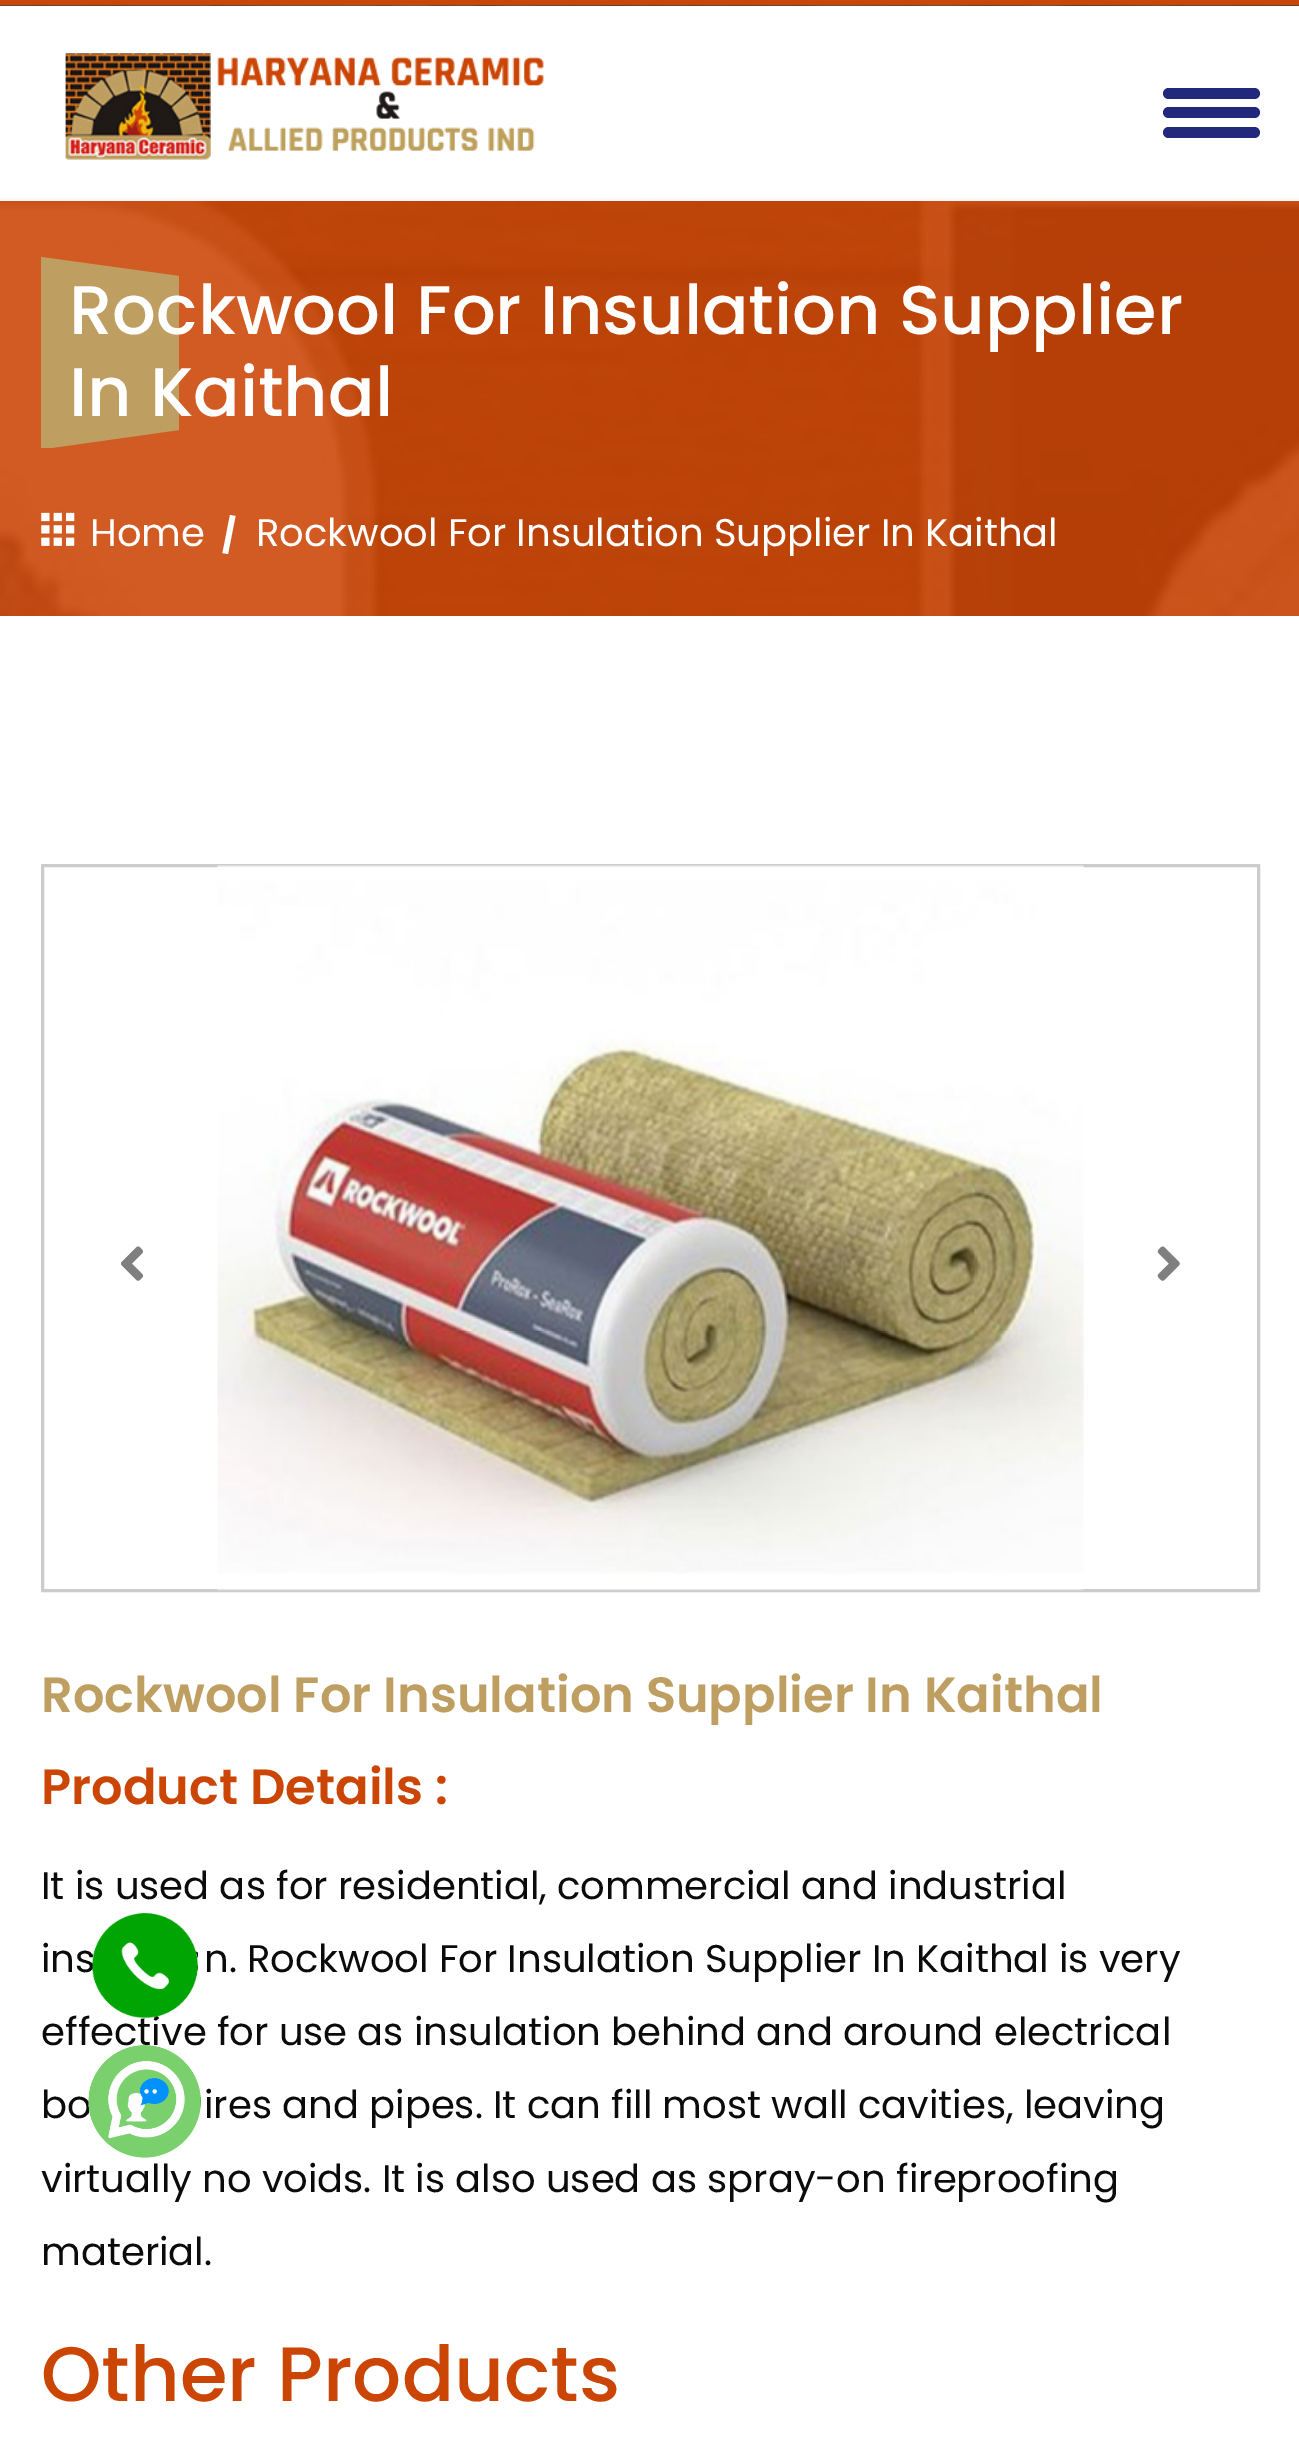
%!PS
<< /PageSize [1299 2438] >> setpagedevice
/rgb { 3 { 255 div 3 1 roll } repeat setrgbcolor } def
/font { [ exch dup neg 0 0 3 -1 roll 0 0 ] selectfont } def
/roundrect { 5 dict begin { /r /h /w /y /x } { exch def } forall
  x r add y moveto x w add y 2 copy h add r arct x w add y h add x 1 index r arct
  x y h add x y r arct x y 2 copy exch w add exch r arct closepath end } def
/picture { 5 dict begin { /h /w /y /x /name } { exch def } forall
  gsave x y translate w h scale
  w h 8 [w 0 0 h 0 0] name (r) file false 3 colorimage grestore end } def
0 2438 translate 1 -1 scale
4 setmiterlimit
255 255 255 rgb
0 0 1299 2438 rectfill
203 69 5 rgb
0 0 1299 5 rectfill
(img/2.rgb) 0 5 1299 611 picture
255 255 255 rgb
0 6 1299 192 rectfill
247 247 247 rgb
0 198 1299 3 rectfill
34 40 124 rgb
1163 88 97 11 5.5 roundrect fill
1163 107 97 11 5.5 roundrect fill
1163 127 97 11 5.5 roundrect fill
(img/1.rgb) 65 53 479 107 picture
190 159 97 rgb
179 276 moveto 179 430 lineto 51 448 lineto 41 448 lineto 41 257 lineto closepath fill
(img/3.rgb) 41 512 34 34 picture
255 255 255 rgb
230 515 moveto 235.5 516 lineto 228 554 lineto 222.5 553 lineto closepath fill
204 204 204 rgb
3 setlinewidth
42.5 865.5 1216 725 rectstroke
(img/4.rgb) 217 865 867 726 picture
(img/5.rgb) 121 1246 23 35 picture
(img/6.rgb) 1157 1246 23 35 picture
/Poppins-Medium 68.75 font
255 255 255 rgb
69 334 moveto (Rockwool For Insulation Supplier) show
69 416 moveto (In Kaithal) show
/Poppins-Regular 38.5 font
90 546 moveto (Home) show
256 546 moveto (Rockwool For Insulation Supplier In Kaithal) show
/Poppins-SemiBold 49.5 font
190 159 97 rgb
41 1712 moveto (Rockwool For Insulation Supplier In Kaithal) show
203 69 5 rgb
41 1804 moveto (Product Details :) show
/Poppins-Regular 38.5 font
11 11 12 rgb
[
  [(It is used as for residential, commercial and industrial) 41 1899]
  [(ins) 41 1972]
  [(n. Rockwool For Insulation Supplier In Kaithal is very) 204 1972]
  [(effective for use as insulation behind and around electrical) 41 2045]
  [(bo) 41 2118]
  [(ires and pipes. It can fill most wall cavities, leaving) 204 2118]
  [(virtually no voids. It is also used as spray-on fireproofing) 41 2192]
  [(material.) 41 2265]
] { aload pop moveto show } forall
/Poppins-Medium 77 font
203 69 5 rgb
41 2401 moveto (Other Products) show
(img/7.rgb) 92 1913 106 106 picture
(img/8.rgb) 88 2045 113 113 picture
showpage
